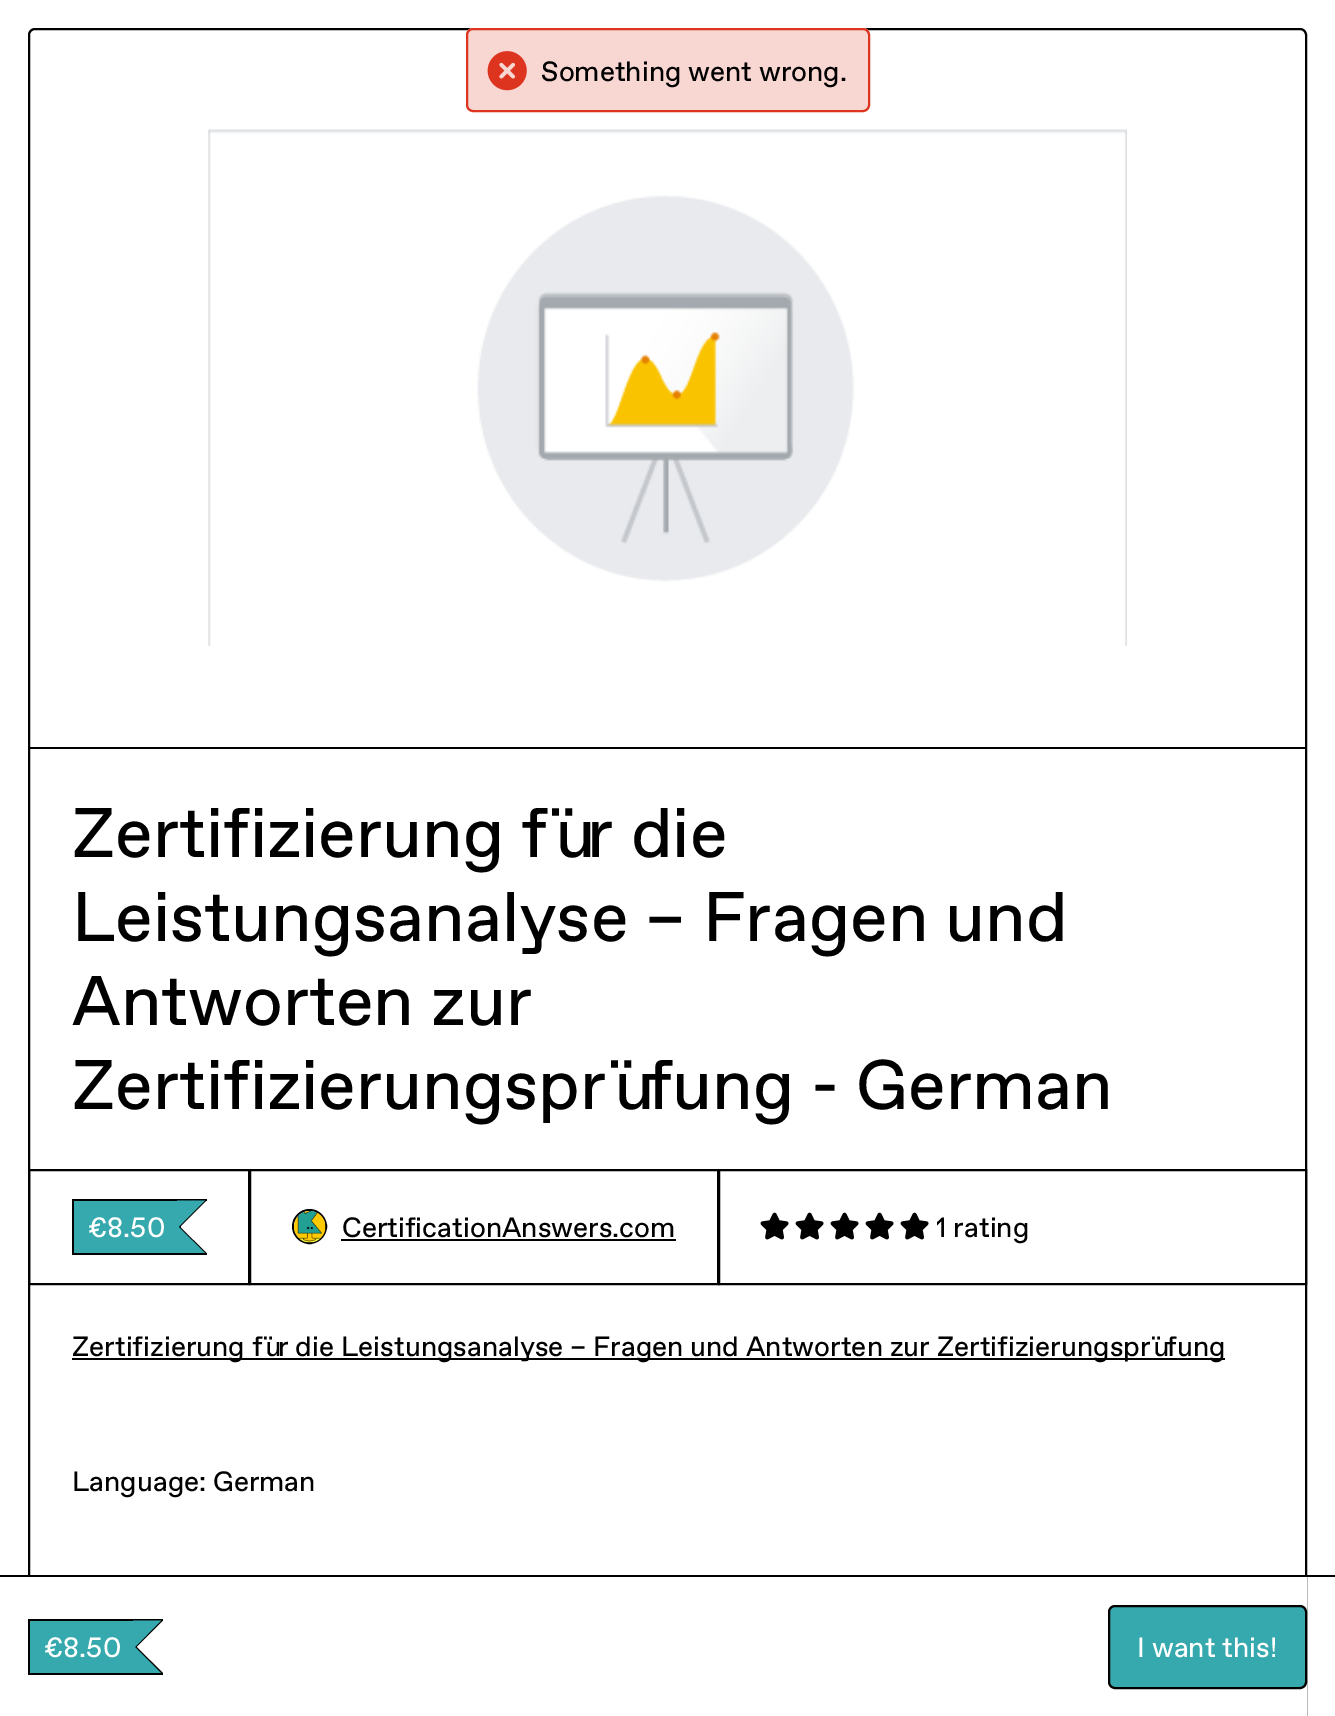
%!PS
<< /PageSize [1335 1716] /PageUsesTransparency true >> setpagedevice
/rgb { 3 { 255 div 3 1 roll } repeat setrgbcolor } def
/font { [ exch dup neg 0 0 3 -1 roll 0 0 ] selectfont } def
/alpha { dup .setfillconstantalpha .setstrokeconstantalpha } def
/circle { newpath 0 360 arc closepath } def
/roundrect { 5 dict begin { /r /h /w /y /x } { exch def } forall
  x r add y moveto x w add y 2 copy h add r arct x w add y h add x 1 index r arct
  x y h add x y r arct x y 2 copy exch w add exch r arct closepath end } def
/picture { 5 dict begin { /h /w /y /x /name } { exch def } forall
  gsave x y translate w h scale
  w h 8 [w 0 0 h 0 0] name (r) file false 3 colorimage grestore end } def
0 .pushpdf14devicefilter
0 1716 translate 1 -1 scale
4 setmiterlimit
255 255 255 rgb
0 0 1335 1716 rectfill
0 0 0 rgb
2 setlinewidth
29 29 1277 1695 6 roundrect stroke
255 255 255 rgb
466 28 404 84 7 roundrect fill
0.2 alpha
220 52 30 rgb
467 29 402 82 6 roundrect fill
1 alpha
467 29 402 82 6 roundrect stroke
(img/1.rgb) 487 51 40 40 picture
0 0 0 rgb
30 747 1276 2 rectfill
(img/2.rgb) 208 129 919 517 picture
29 1170 220 114 rectstroke
[
  [72 1199 135 2 0 0 0]
  [72 1253 135 2 0 0 0]
  [72 1199 2 56 0 0 0]
  [74 1201 105 52 54 169 174]
] { aload pop rgb rectfill } forall
0 0 0 rgb
178.5 1200.5 moveto 206.5 1200.5 lineto 180 1227 lineto closepath 206.5 1253 moveto 178.5 1253 lineto 180 1227 lineto closepath fill
179 1224 2 6 rectfill
54 169 174 rgb
177 1200.5 moveto 205 1200.5 lineto 178.5 1227 lineto closepath 205 1253 moveto 177 1253 lineto 178.5 1227 lineto closepath fill
0 0 0 rgb
250 1170 468 114 rectstroke
309.5 1226.5 16.5 circle stroke
(img/3.rgb) 294 1211 32 32 picture
341 1239 335 2 rectfill
719 1170 587 114 rectstroke
(img/4.rgb) 760 1212 29 28 picture
(img/4.rgb) 795 1212 29 28 picture
(img/4.rgb) 830 1212 29 28 picture
(img/4.rgb) 865 1212 29 28 picture
(img/4.rgb) 900 1212 29 28 picture
[
  [72 1358 1153 2 0 0 0]
  [0 1575 1335 2 0 0 0]
  [28 1577 1279 139 255 255 255]
  [28 1619 135 2 0 0 0]
  [28 1673 135 2 0 0 0]
  [28 1619 2 56 0 0 0]
  [30 1621 105 52 54 169 174]
] { aload pop rgb rectfill } forall
0 0 0 rgb
135 1620.5 moveto 163 1620.5 lineto 136.5 1647 lineto closepath 163 1673 moveto 135 1673 lineto 136.5 1647 lineto closepath fill
135 1645 2 4 rectfill
54 169 174 rgb
133 1620.5 moveto 161 1620.5 lineto 135 1647 lineto closepath 161 1673 moveto 133 1673 lineto 135 1647 lineto closepath fill
1109 1606 197 82 6 roundrect gsave fill grestore
0 0 0 rgb
stroke
/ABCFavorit-Regular 28 font
541 81 moveto (Something went wrong.) show
/ABCFavorit-Regular 70 font
[
  [(Zertifizierung für die) 72 857]
  [(Leistungsanalyse – Fragen und) 72 941]
  [(Antworten zur) 72 1025]
  [(Zertifizierungsprüfung - German) 72 1109]
] { aload pop moveto show } forall
/ABCFavorit-Regular 28 font
255 255 255 rgb
88 1237 moveto (€8.50) show
0 0 0 rgb
[
  [(CertificationAnswers.com) 342 1237]
  [(1 rating) 936 1237]
  [(Zertifizierung für die Leistungsanalyse – Fragen und Antworten zur Zertifizierungsprüfung) 72 1356]
  [(Language: German) 72 1491]
] { aload pop moveto show } forall
255 255 255 rgb
44 1657 moveto (€8.50) show
1137 1657 moveto (I want this!) show
.poppdf14devicefilter showpage
